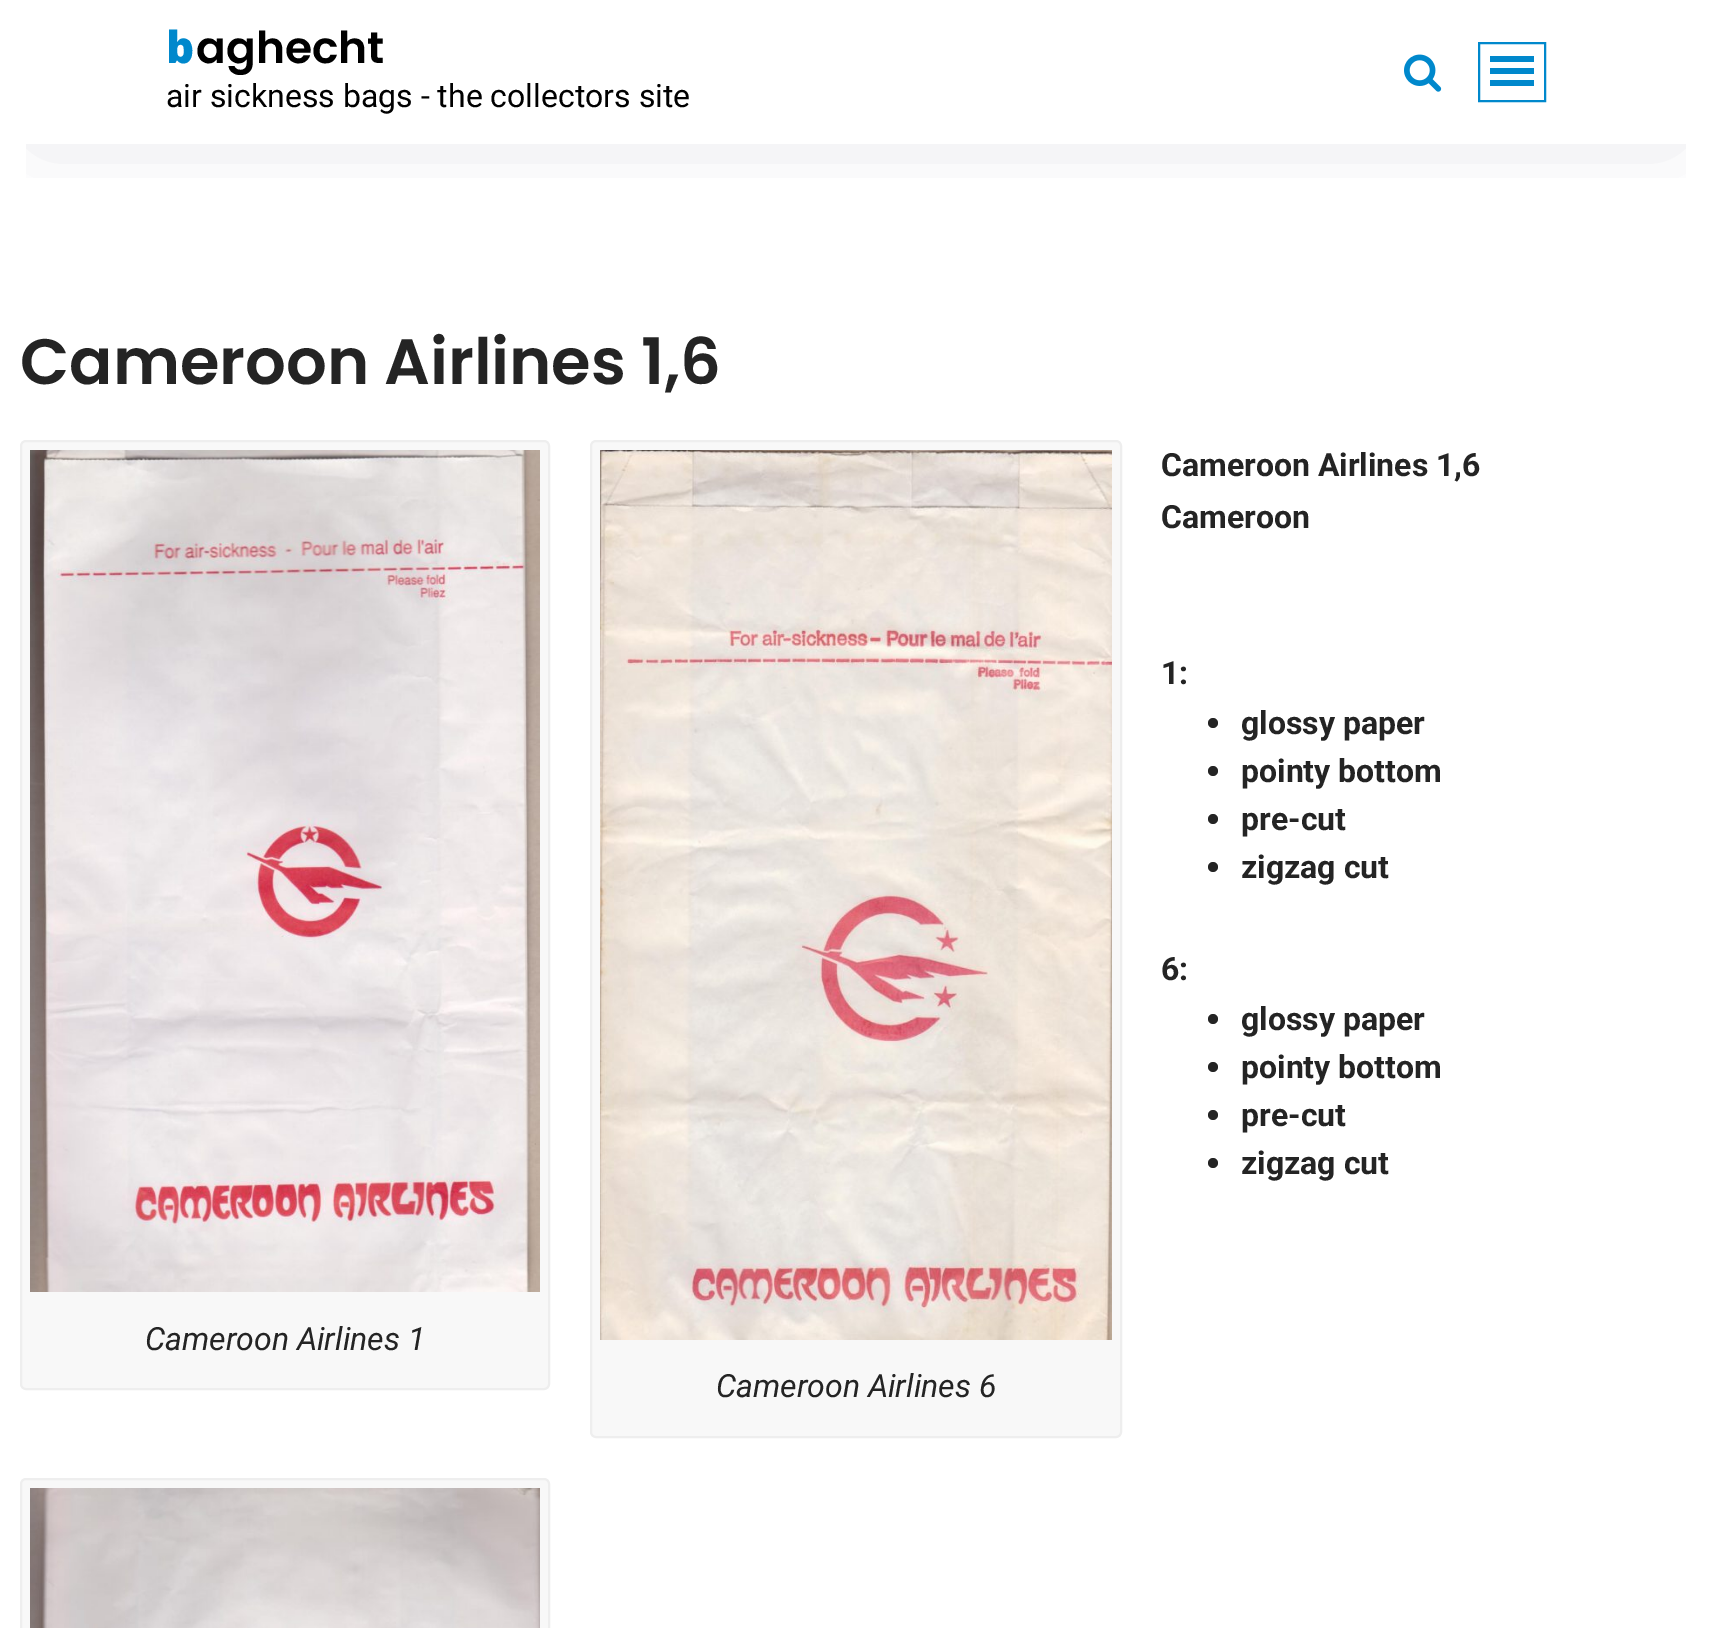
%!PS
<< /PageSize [1712 1628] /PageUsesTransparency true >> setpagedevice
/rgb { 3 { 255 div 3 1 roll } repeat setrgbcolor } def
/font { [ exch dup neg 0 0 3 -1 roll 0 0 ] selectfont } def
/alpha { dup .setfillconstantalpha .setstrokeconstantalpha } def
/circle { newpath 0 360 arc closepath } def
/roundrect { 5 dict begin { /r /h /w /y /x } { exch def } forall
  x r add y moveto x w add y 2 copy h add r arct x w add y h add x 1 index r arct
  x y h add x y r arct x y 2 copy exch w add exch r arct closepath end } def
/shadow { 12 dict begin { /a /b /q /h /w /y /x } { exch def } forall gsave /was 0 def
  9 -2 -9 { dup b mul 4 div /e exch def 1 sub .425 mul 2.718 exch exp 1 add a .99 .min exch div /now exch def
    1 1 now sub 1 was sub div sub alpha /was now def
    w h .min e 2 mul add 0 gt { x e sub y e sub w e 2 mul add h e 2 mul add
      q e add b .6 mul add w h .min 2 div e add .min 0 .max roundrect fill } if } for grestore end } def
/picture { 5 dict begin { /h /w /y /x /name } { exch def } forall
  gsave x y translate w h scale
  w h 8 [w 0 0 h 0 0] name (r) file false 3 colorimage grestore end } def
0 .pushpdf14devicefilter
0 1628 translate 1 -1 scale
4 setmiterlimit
255 255 255 rgb
0 0 1712 1628 rectfill
gsave
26 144 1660 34 rectclip
40 44 63 rgb
40 70 1632 64 0 40 0.15 shadow
grestore
(img/1.rgb) 1404 54 38 38 picture
0 136 204 rgb
2 setlinewidth
1479 43 66 58 rectstroke
[
  [1490 56 44 6 0 136 204]
  [1490 68 44 6 0 136 204]
  [1490 80 44 6 0 136 204]
] { aload pop rgb rectfill } forall
36 36 36 rgb
1213 723 5 circle fill
1213 771 5 circle fill
1213 819 5 circle fill
1213 867 5 circle fill
1213 1019 5 circle fill
1213 1067 5 circle fill
1213 1115 5 circle fill
1213 1163 5 circle fill
248 248 248 rgb
21 441 528 948 5 roundrect gsave fill grestore
238 238 238 rgb
stroke
(img/2.rgb) 30 450 510 842 picture
248 248 248 rgb
591 441 530 996 5 roundrect gsave fill grestore
238 238 238 rgb
stroke
(img/3.rgb) 600 450 512 890 picture
248 248 248 rgb
21 1479 528 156 5 roundrect gsave fill grestore
238 238 238 rgb
stroke
(img/4.rgb) 30 1488 510 140 picture
/NotoSans-Black 44 font
0 136 204 rgb
166 63 moveto (b) show
/Poppins-SemiBold 44 font
0 0 0 rgb
196 63 moveto (aghecht) show
/Roboto-Regular 32 font
166 107 moveto (air sickness bags - the collectors site) show
/Poppins-SemiBold 64 font
36 36 36 rgb
20 384 moveto (Cameroon Airlines 1,6) show
/Roboto-Bold 32 font
[
  [(Cameroon Airlines 1,6) 1161 476]
  [(Cameroon) 1161 528]
  [(1:) 1161 684]
  [(glossy paper) 1241 734]
  [(pointy bottom) 1241 782]
  [(pre-cut) 1241 830]
  [(zigzag cut) 1241 878]
  [(6:) 1161 980]
  [(glossy paper) 1241 1030]
  [(pointy bottom) 1241 1078]
  [(pre-cut) 1241 1126]
  [(zigzag cut) 1241 1174]
] { aload pop moveto show } forall
/Roboto-Italic 32 font
145 1350 moveto (Cameroon Airlines 1) show
716 1397 moveto (Cameroon Airlines 6) show
.poppdf14devicefilter showpage
